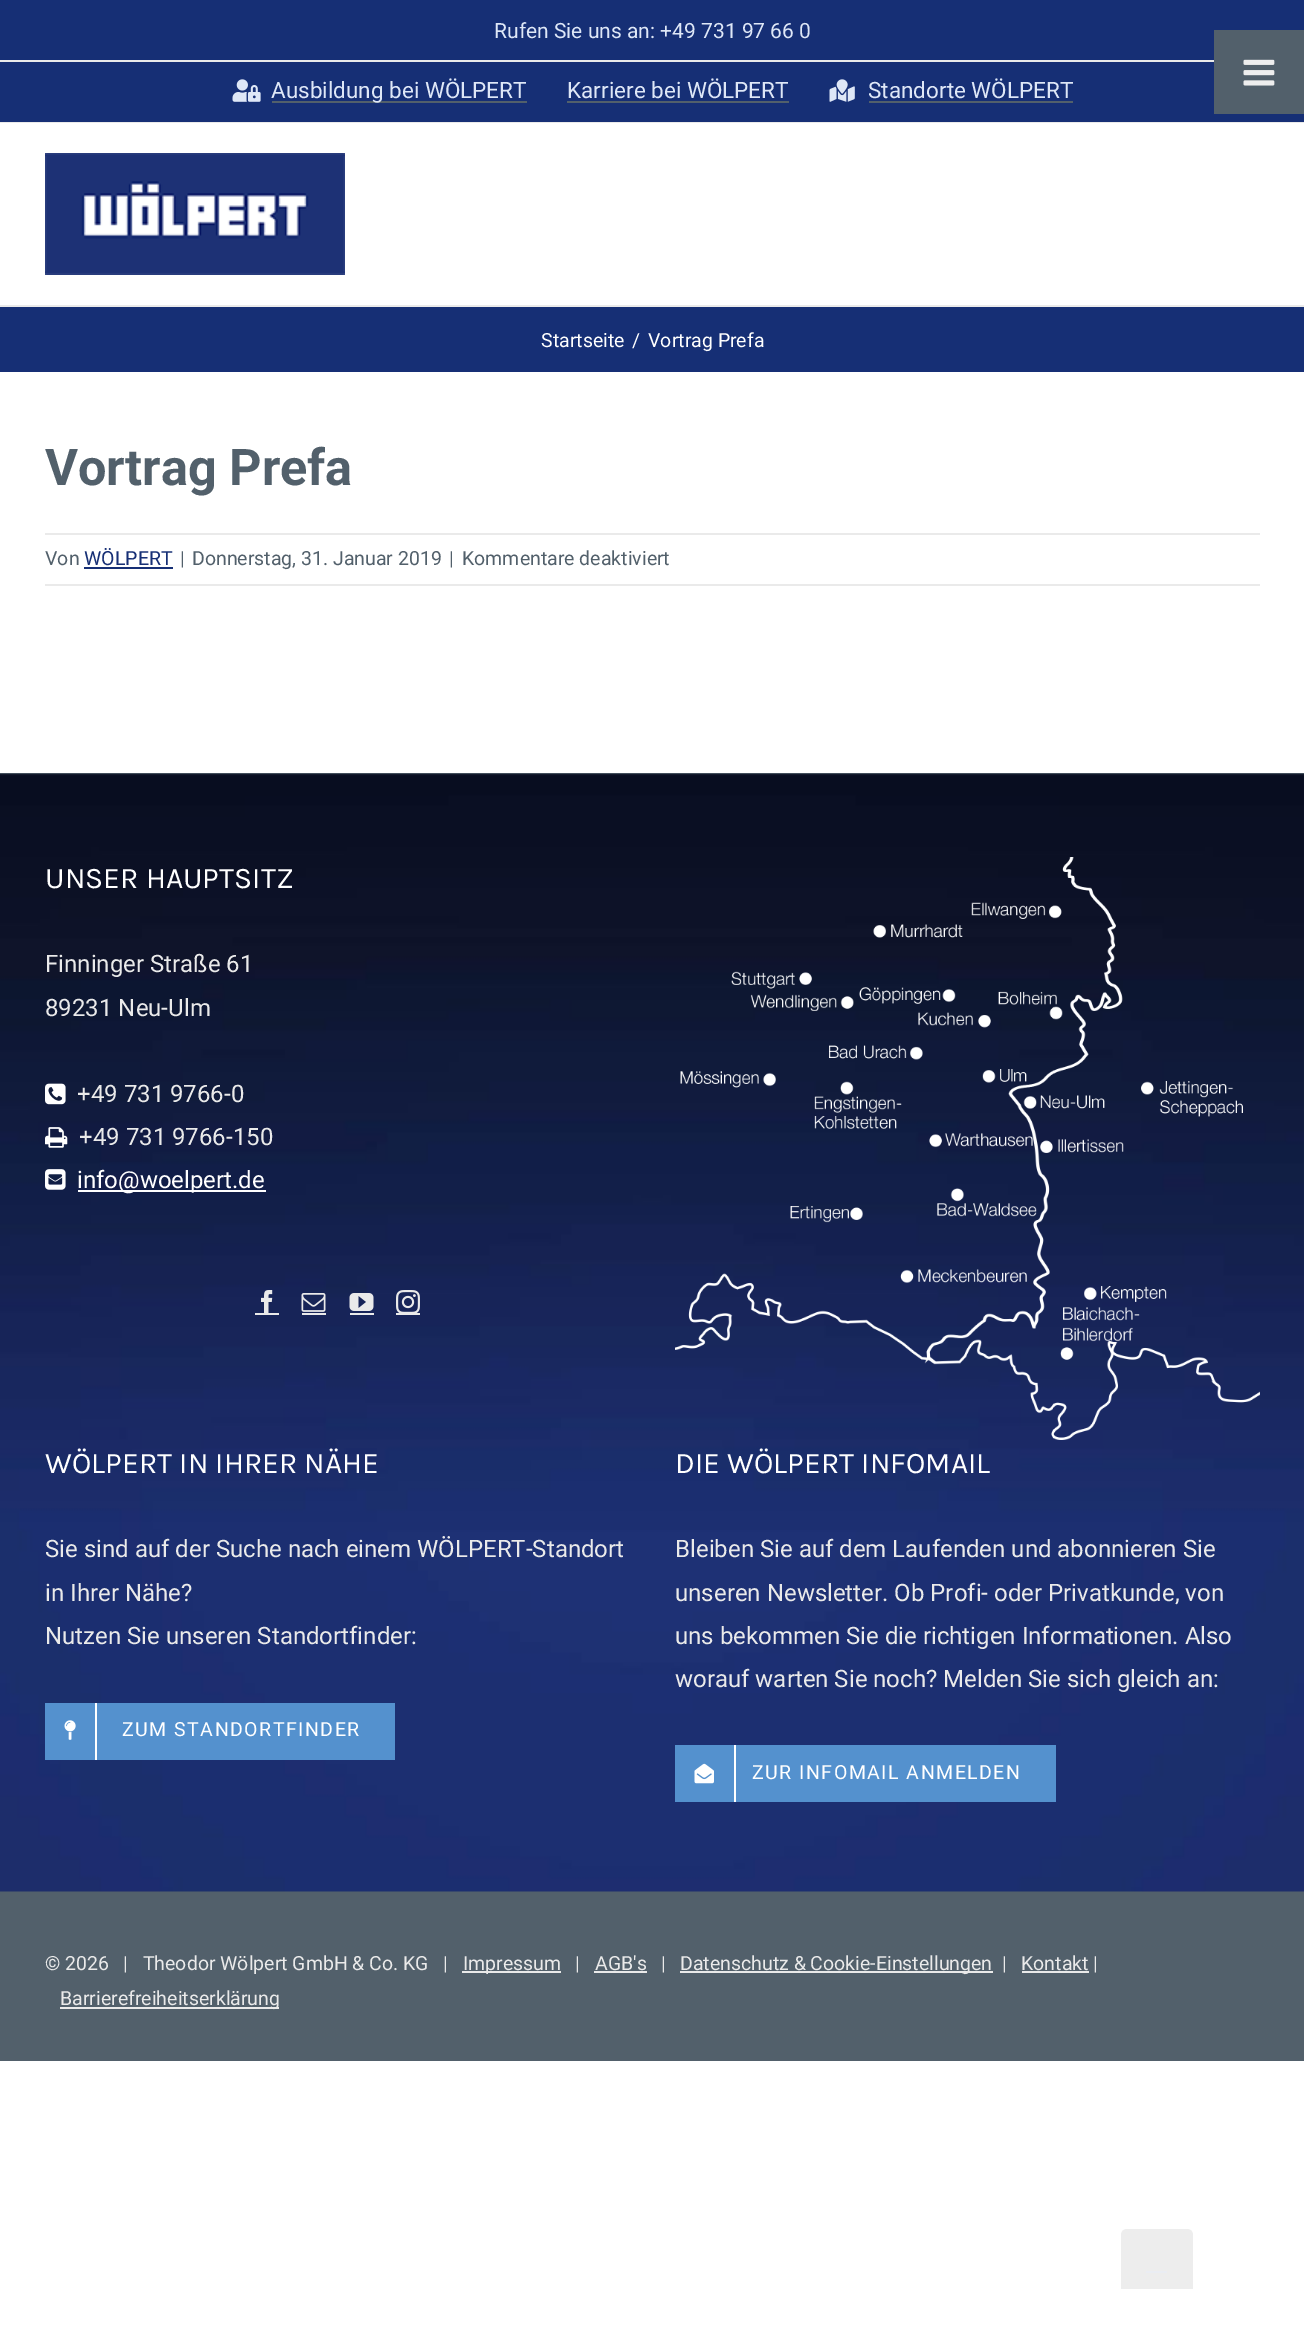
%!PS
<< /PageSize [1304 2333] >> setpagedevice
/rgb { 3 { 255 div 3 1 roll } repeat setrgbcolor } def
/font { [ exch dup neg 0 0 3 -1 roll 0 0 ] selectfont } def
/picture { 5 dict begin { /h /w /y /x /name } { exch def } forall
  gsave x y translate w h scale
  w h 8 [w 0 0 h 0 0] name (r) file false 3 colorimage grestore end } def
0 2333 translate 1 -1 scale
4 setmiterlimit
255 255 255 rgb
0 0 1304 2333 rectfill
[
  [0 0 1304 122 22 47 117]
  [0 122 1304 1 234 234 234]
  [0 60 1214 2 234 234 234]
] { aload pop rgb rectfill } forall
(img/1.rgb) 232 79 29 23 picture
82 96 107 rgb
272 101 255 2 rectfill
567 101 222 2 rectfill
(img/2.rgb) 829 79 26 23 picture
869 101 204 2 rectfill
234 234 234 rgb
0 305 1304 2 rectfill
(img/3.rgb) 45 153 300 122 picture
[
  [0 307 1304 65 22 47 117]
  [45 533 1215 2 234 234 234]
  [45 584 1215 2 234 234 234]
  [84 567 89 2 22 47 117]
  [0 773 1304 1288 82 96 107]
] { aload pop rgb rectfill } forall
(img/4.rgb) 0 773 1304 1119 picture
(img/5.rgb) 45 1083 21 22 picture
(img/6.rgb) 45 1127 23 21 picture
(img/7.rgb) 45 1169 21 21 picture
255 255 255 rgb
78 1190 188 2 rectfill
(img/8.rgb) 261 1290 12 23 picture
234 234 234 rgb
255 1313 24 2 rectfill
(img/9.rgb) 301 1293 25 19 picture
302 1313 24 2 rectfill
(img/10.rgb) 349 1293 25 18 picture
350 1313 24 2 rectfill
(img/11.rgb) 396 1290 24 23 picture
396 1313 24 2 rectfill
(img/12.rgb) 675 857 585 583 picture
84 145 206 rgb
45 1703 350 57 rectfill
255 255 255 rgb
95 1703 2 57 rectfill
(img/13.rgb) 64 1720 12 20 picture
84 145 206 rgb
675 1745 381 57 rectfill
255 255 255 rgb
734 1745 2 57 rectfill
(img/14.rgb) 694 1763 20 21 picture
[
  [462 1971 99 2 234 234 234]
  [594 1971 53 2 234 234 234]
  [680 1971 313 2 234 234 234]
  [1022 1971 67 2 234 234 234]
  [60 2007 219 2 234 234 234]
  [1214 30 90 84 82 96 107]
] { aload pop rgb rectfill } forall
(img/15.rgb) 1243 59 32 27 picture
237 237 237 rgb
1127 2229 moveto 1187 2229 lineto 1190.5 2229 1193 2231.5 1193 2235 curveto 1193 2289 lineto 1121 2289 lineto 1121 2235 lineto 1121 2231.5 1123.5 2229 1127 2229 curveto closepath fill
234 237 243 rgb
1146 2271 21 2 rectfill
/Roboto-Regular 21 font
222 231 247 rgb
494 38 moveto (Rufen Sie uns an: +49 731 97 66 0) show
/Roboto-Regular 22.5 font
[
  [(Ausbildung bei WÖLPERT) 271 98]
  [(Karriere bei WÖLPERT) 567 98]
  [(Standorte WÖLPERT) 868 98]
] { aload pop moveto show } forall
/Roboto-Regular 19.5 font
255 255 255 rgb
[
  [(Startseite) 541 347]
  [(/) 632 347]
  [(Vortrag Prefa) 648 347]
] { aload pop moveto show } forall
/Roboto-Bold 50.5 font
82 96 107 rgb
45 485 moveto (Vortrag Prefa) show
/Roboto-Regular 19.5 font
45 565 moveto (Von) show
22 47 117 rgb
84 565 moveto (WÖLPERT) show
82 96 107 rgb
[
  [(|) 180 565]
  [(Donnerstag, 31. Januar 2019) 192 565]
  [(|) 449 565]
  [(Kommentare deaktiviert) 462 565]
] { aload pop moveto show } forall
/Karla-Regular 30 font
255 255 255 rgb
45 888 moveto (UNSER HAUPTSITZ) show
/Roboto-Regular 24 font
234 234 234 rgb
[
  [(Finninger Straße 61) 45 972]
  [(89231 Neu-Ulm) 45 1016]
  [(+49 731 9766-0) 77 1102]
  [(+49 731 9766-150) 79 1145]
] { aload pop moveto show } forall
255 255 255 rgb
77 1188 moveto (info@woelpert.de) show
/Karla-Regular 30 font
45 1473 moveto (WÖLPERT IN IHRER NÄHE) show
/Roboto-Regular 24 font
234 234 234 rgb
[
  [(Sie sind auf der Suche nach einem WÖLPERT-Standort) 45 1557]
  [(in Ihrer Nähe?) 45 1601]
  [(Nutzen Sie unseren Standortfinder:) 45 1644]
] { aload pop moveto show } forall
/Roboto-Regular 19.5 font
255 255 255 rgb
122 1736 moveto 1.5 0 (ZUM STANDORTFINDER) ashow
/Karla-Regular 30 font
675 1473 moveto (DIE WÖLPERT INFOMAIL) show
/Roboto-Regular 24 font
234 234 234 rgb
[
  [(Bleiben Sie auf dem Laufenden und abonnieren Sie) 675 1557]
  [(unseren Newsletter. Ob Profi- oder Privatkunde, von) 675 1601]
  [(uns bekommen Sie die richtigen Informationen. Also) 675 1644]
  [(worauf warten Sie noch? Melden Sie sich gleich an:) 675 1687]
] { aload pop moveto show } forall
/Roboto-Regular 19.5 font
255 255 255 rgb
752 1779 moveto 1.5 0 (ZUR INFOMAIL ANMELDEN) ashow
234 234 234 rgb
[
  [(© 2026   |   Theodor Wölpert GmbH & Co. KG   |) 45 1970]
  [(Impressum) 463 1970]
  [(|) 575 1970]
  [(AGB's) 595 1970]
  [(|) 661 1970]
  [(Datenschutz & Cookie-Einstellungen) 680 1970]
  [(|) 1002 1970]
  [(Kontakt |) 1021 1970]
  [(Barrierefreiheitserklärung) 60 2005]
] { aload pop moveto show } forall
showpage
